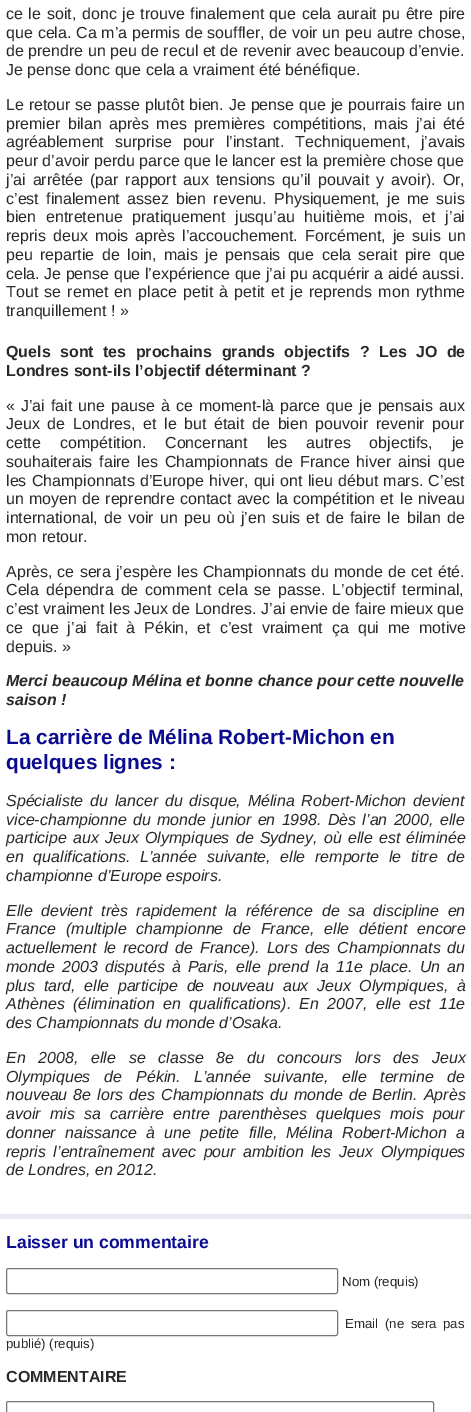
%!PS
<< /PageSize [471 1412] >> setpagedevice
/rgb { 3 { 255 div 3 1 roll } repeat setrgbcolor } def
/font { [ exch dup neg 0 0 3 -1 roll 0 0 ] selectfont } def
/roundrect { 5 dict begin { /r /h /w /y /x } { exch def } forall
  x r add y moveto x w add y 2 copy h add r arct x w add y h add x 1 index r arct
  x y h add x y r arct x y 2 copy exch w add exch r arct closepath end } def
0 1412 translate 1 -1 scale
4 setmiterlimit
255 255 255 rgb
0 0 471 1412 rectfill
232 233 243 rgb
0 1214 471 5 rectfill
118 118 118 rgb
6.5 1268.5 331 25 2 roundrect stroke
6.5 1310.5 331 25 2 roundrect stroke
6.5 1401.5 427 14 2 roundrect stroke
/LiberationSans-Regular 16 font
41 41 41 rgb
6 19 moveto 1.1 0 32 (ce le) widthshow
47 19 moveto 1.1 0 32 (soit, donc je trouve finalement que cela aurait pu être pire) widthshow
6 38 moveto 0.4 0 32 (que cela.) widthshow
76 38 moveto 0.4 0 32 (Ca m’a permis de souffler, de voir un peu autre chose,) widthshow
6 56 moveto (de prendre un peu de recul et de revenir avec beaucoup d’envie.) show
6 75 moveto (Je pense donc que cela a vraiment été bénéfique.) show
6 110 moveto 0.5 0 32 (Le retour se passe plutôt bien. Je pense que je pourrais faire un) widthshow
6 129 moveto 3 0 32 (premier bilan après mes premières compétitions, mais j’ai été) widthshow
6 147 moveto 6.5 0 32 (agréablement surprise pour l’instant. Techniquement, j’avais) widthshow
6 166 moveto (peur d’avoir perdu parce que le lancer est la première chose que) show
6 185 moveto 2.5 0 32 (j’ai arrêtée) widthshow
90 185 moveto 2.5 0 32 (\(par rapport aux tensions qu’il pouvait y avoir\). Or,) widthshow
6 204 moveto 2.75 0 32 (c’est finalement) widthshow
127 204 moveto 2.75 0 32 (assez bien revenu. Physiquement, je me suis) widthshow
6 222 moveto 5.25 0 32 (bien entretenue pratiquement) widthshow
235 222 moveto 5.25 0 32 (jusqu’au huitième mois, et j’ai) widthshow
6 241 moveto 2.5 0 32 (repris deux mois après l’accouchement.) widthshow
305 241 moveto 2.5 0 32 (Forcément, je suis un) widthshow
6 260 moveto 3 0 32 (peu repartie de loin, mais je pensais que cela) widthshow
358 260 moveto 3 0 32 (serait pire que) widthshow
6 279 moveto (cela. Je pense que l’expérience que j’ai pu acquérir a aidé aussi.) show
6 297 moveto 1.75 0 32 (Tout se remet en place petit à petit et je reprends mon) widthshow
416 297 moveto (rythme) show
6 316 moveto (tranquillement ! ») show
/LiberationSans-Bold 16 font
6 357 moveto 5 0 32 (Quels sont tes prochains grands objectifs ? Les JO de) widthshow
6 376 moveto (Londres sont-ils l’objectif déterminant ?) show
/LiberationSans-Regular 16 font
6 411 moveto 1.6 0 32 (« J’ai fait une pause à ce moment-là parce que je pensais aux) widthshow
6 429 moveto 3.25 0 32 (Jeux de) widthshow
73 429 moveto 3.25 0 32 (Londres, et le but était de bien pouvoir revenir pour) widthshow
6 448 moveto 15 0 32 (cette compétition.) widthshow
165 448 moveto 14.5 0 32 (Concernant les autres objectifs, je) widthshow
6 467 moveto 2.5 0 32 (souhaiterais faire les Championnats) widthshow
275 467 moveto 2.5 0 32 (de France hiver ainsi que) widthshow
6 486 moveto 0.75 0 32 (les Championnats d’Europe hiver, qui ont lieu) widthshow
338 486 moveto 0.75 0 32 (début mars. C’est) widthshow
6 504 moveto 0.75 0 32 (un moyen de reprendre contact avec la compétition et) widthshow
400 504 moveto 0.75 0 32 (le niveau) widthshow
6 523 moveto 1.75 0 32 (international, de voir un peu où j’en suis et de faire le) widthshow
407 523 moveto 2 0 32 (bilan de) widthshow
6 542 moveto (mon retour.) show
6 577 moveto 0.75 0 32 (Après, ce sera j’espère les Championnats du monde de cet été.) widthshow
6 595 moveto (Cela) show
46 595 moveto 2.5 0 32 (dépendra de comment cela se passe. L’objectif terminal,) widthshow
6 614 moveto (c’est vraiment les Jeux de Londres. J’ai envie de faire mieux que) show
6 633 moveto 4.5 0 32 (ce que j’ai fait à) widthshow
144 633 moveto 4.5 0 32 (Pékin, et c’est vraiment ça qui me motive) widthshow
6 652 moveto (depuis. ») show
/LiberationSans-BoldItalic 16 font
6 686 moveto (Merci beaucoup Mélina et bonne chance pour cette nouvelle) show
6 705 moveto (saison !) show
/LiberationSans-Bold 20.75 font
11 11 146 rgb
6 744 moveto (La carrière de Mélina Robert-Michon en) show
6 769 moveto (quelques lignes :) show
/LiberationSans-Italic 16 font
41 41 41 rgb
6 806 moveto 2.25 0 32 (Spécialiste du lancer du disque, Mélina Robert-Michon devient) widthshow
6 825 moveto 1.75 0 32 (vice-championne du monde junior en 1998. Dès l’an 2000, elle) widthshow
6 843 moveto (participe) show
73 843 moveto 1.75 0 32 (aux Jeux Olympiques de Sydney, où elle est éliminée) widthshow
6 862 moveto 5.25 0 32 (en qualifications.) widthshow
140 862 moveto 5.25 0 32 (L’année suivante, elle remporte le titre de) widthshow
6 881 moveto (championne d’Europe espoirs.) show
6 916 moveto 4 0 32 (Elle devient très rapidement la référence de sa discipline en) widthshow
6 934 moveto (France) show
66 934 moveto 5.25 0 32 (\(multiple championne de France, elle détient encore) widthshow
6 953 moveto 2.5 0 32 (actuellement le) widthshow
123 953 moveto 2.5 0 32 (record de France\). Lors des Championnats du) widthshow
6 972 moveto 2.75 0 32 (monde 2003 disputés à Paris,) widthshow
236 972 moveto 2.75 0 32 (elle prend la 11e place. Un an) widthshow
6 991 moveto 4 0 32 (plus tard, elle participe de nouveau aux) widthshow
317 991 moveto 4 0 32 (Jeux Olympiques, à) widthshow
6 1009 moveto 3.75 0 32 (Athènes \(élimination en qualifications\). En 2007,) widthshow
376 1009 moveto 3.75 0 32 (elle est 11e) widthshow
6 1028 moveto (des Championnats du monde d’Osaka.) show
6 1063 moveto 8.25 0 32 (En 2008, elle se classe 8e du concours lors des Jeux) widthshow
6 1082 moveto 9 0 32 (Olympiques de) widthshow
136 1082 moveto 9 0 32 (Pékin. L’année suivante, elle termine de) widthshow
6 1100 moveto 1.5 0 32 (nouveau 8e lors des) widthshow
161 1100 moveto 1.5 0 32 (Championnats du monde de Berlin. Après) widthshow
6 1119 moveto 4.75 0 32 (avoir mis sa carrière entre) widthshow
219 1119 moveto 4.5 0 32 (parenthèses quelques mois pour) widthshow
6 1138 moveto 4.75 0 32 (donner naissance à une petite fille,) widthshow
286 1138 moveto 4.5 0 32 (Mélina Robert-Michon a) widthshow
6 1157 moveto 3 0 32 (repris l’entraînement avec pour ambition les Jeux) widthshow
381 1157 moveto (Olympiques) show
6 1175 moveto (de Londres, en 2012.) show
/LiberationSans-Bold 17.6 font
11 11 146 rgb
6 1248 moveto (Laisser un commentaire) show
/LiberationSans-Regular 13.25 font
41 41 41 rgb
342 1286 moveto (Nom \(requis\)) show
345 1328 moveto 3 0 32 (Email \(ne sera pas) widthshow
6 1348 moveto (publié\) \(requis\)) show
/LiberationSans-Bold 16 font
6 1382 moveto (COMMENTAIRE) show
showpage
